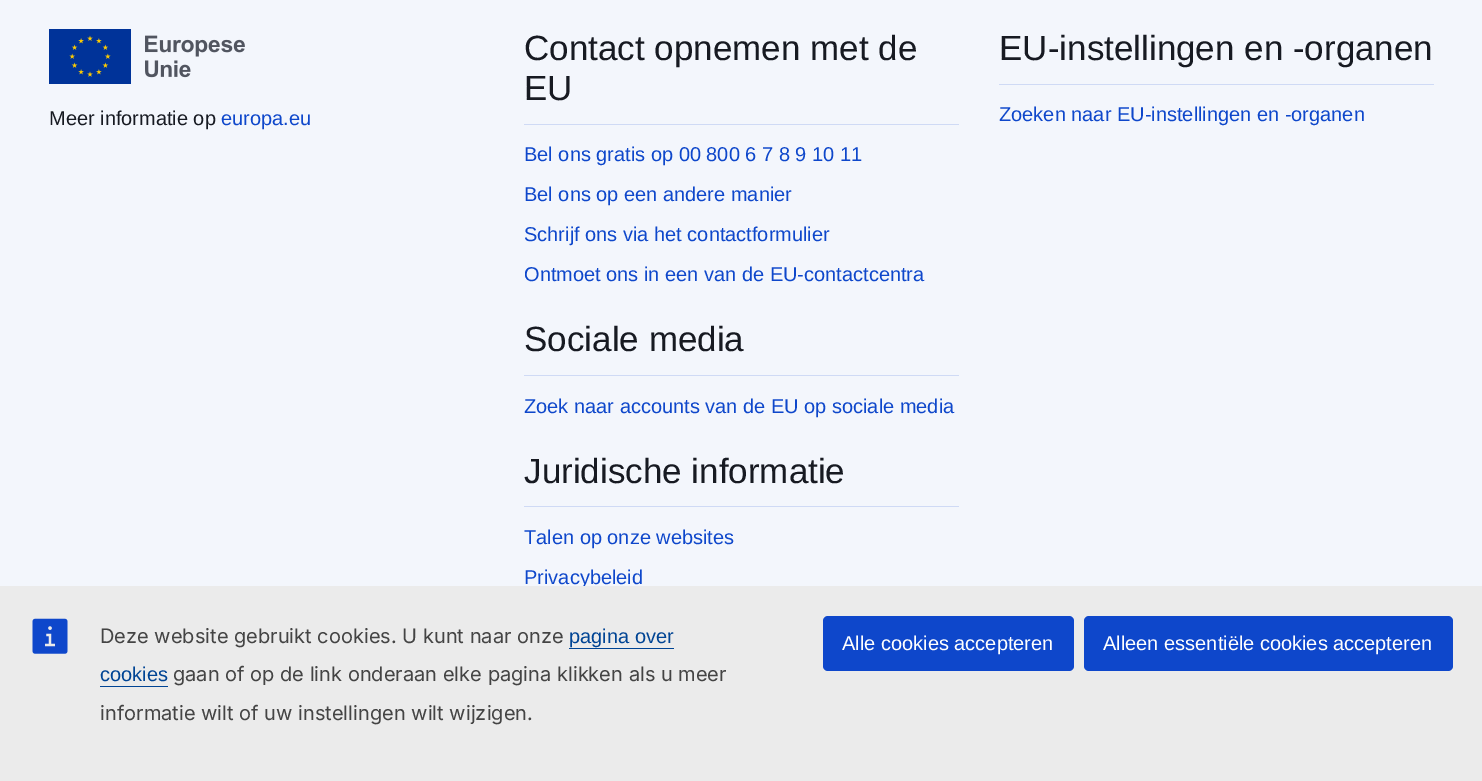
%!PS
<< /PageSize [1482 781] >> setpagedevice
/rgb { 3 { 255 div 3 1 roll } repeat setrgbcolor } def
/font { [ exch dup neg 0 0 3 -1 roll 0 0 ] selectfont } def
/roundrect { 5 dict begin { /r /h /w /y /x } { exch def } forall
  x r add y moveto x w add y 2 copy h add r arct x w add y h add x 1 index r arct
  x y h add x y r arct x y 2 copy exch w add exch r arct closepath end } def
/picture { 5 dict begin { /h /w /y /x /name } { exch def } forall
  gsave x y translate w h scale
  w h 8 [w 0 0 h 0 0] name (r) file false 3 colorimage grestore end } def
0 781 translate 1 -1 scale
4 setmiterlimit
243 246 252 rgb
0 0 1482 781 rectfill
(img/1.rgb) 49 29 196 55 picture
[
  [524 124 435 1 207 218 245]
  [524 375 435 1 207 218 245]
  [524 506 435 1 207 218 245]
  [999 84 435 1 207 218 245]
] { aload pop rgb rectfill } forall
/LiberationSans-Regular 20 font
23 26 34 rgb
49 125 moveto (Meer informatie op) show
14 71 203 rgb
221 125 moveto (europa.eu) show
/LiberationSans-Regular 35 font
23 26 34 rgb
524 60 moveto (Contact opnemen met de) show
524 100 moveto (EU) show
/LiberationSans-Regular 20 font
14 71 203 rgb
[
  [(Bel ons gratis op 00 800 6 7 8 9 10 11) 524 161]
  [(Bel ons op een andere manier) 524 201]
  [(Schrijf ons via het contactformulier) 524 241]
  [(Ontmoet ons in een van de EU-contactcentra) 524 281]
] { aload pop moveto show } forall
/LiberationSans-Regular 35 font
23 26 34 rgb
524 351 moveto (Sociale media) show
/LiberationSans-Regular 20 font
14 71 203 rgb
524 413 moveto (Zoek naar accounts van de EU op sociale media) show
/LiberationSans-Regular 35 font
23 26 34 rgb
524 483 moveto (Juridische informatie) show
/LiberationSans-Regular 20 font
14 71 203 rgb
524 544 moveto (Talen op onze websites) show
524 584 moveto (Privacybeleid) show
/LiberationSans-Regular 35 font
23 26 34 rgb
999 60 moveto (EU-instellingen en -organen) show
/LiberationSans-Regular 20 font
14 71 203 rgb
999 121 moveto (Zoeken naar EU-instellingen en -organen) show
235 235 235 rgb
0 586 1482 195 rectfill
(img/2.rgb) 32 618 36 36 picture
/Inter-Regular 20 font
68 68 68 rgb
100 643 moveto (Deze website gebruikt cookies. U kunt naar onze) show
/LiberationSans-Regular 20 font
0 68 148 rgb
569 643 moveto (pagina over) show
569 648 105 1 rectfill
100 681 moveto (cookies) show
100 686 68 1 rectfill
/Inter-Regular 20 font
68 68 68 rgb
173 681 moveto (gaan of op de link onderaan elke pagina klikken als u meer) show
100 720 moveto (informatie wilt of uw instellingen wilt wijzigen.) show
14 71 203 rgb
823 616 251 55 5 roundrect fill
/LiberationSans-Regular 20 font
255 255 255 rgb
842 650 moveto (Alle cookies accepteren) show
14 71 203 rgb
1084 616 369 55 5 roundrect fill
255 255 255 rgb
1103 650 moveto (Alleen essentiële cookies accepteren) show
showpage
